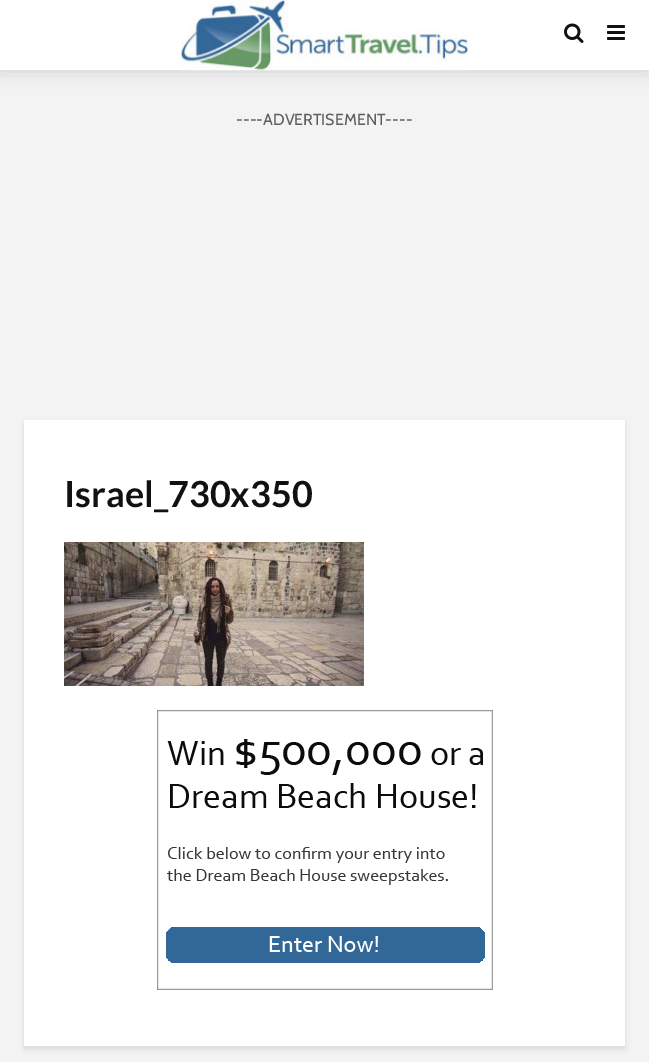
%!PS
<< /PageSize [649 1062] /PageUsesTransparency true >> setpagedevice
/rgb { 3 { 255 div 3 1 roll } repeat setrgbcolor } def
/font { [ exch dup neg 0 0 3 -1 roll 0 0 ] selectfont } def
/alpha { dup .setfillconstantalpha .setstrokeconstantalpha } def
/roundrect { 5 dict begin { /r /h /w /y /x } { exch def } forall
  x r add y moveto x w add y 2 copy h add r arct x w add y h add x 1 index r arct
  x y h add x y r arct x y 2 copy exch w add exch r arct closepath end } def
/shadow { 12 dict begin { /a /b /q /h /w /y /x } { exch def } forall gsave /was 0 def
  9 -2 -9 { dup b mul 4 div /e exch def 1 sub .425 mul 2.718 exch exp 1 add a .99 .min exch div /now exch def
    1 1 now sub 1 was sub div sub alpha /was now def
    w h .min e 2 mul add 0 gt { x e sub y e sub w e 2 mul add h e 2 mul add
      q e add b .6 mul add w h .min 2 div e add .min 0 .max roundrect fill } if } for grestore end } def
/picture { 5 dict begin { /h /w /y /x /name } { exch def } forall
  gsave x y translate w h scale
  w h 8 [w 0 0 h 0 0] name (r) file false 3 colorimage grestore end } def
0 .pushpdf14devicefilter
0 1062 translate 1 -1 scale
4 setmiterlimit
243 243 243 rgb
0 0 649 1062 rectfill
0 0 0 rgb
0 0 649 70 0 10 0.15 shadow
255 255 255 rgb
0 0 649 70 rectfill
(img/1.rgb) 181 0 288 71 picture
(img/2.rgb) 564 23 20 20 picture
(img/3.rgb) 607 25 18 15 picture
0 1 1 rgb
24 423 601 626 0 2.5 0.1 shadow
255 255 255 rgb
24 420 601 626 rectfill
(img/4.rgb) 64 542 300 144 picture
(img/5.rgb) 157 710 336 280 picture
/Cabin-Regular 16 font
94 94 94 rgb
236 125 moveto (----ADVERTISEMENT----) show
/Lato-Bold 36 font
17 17 17 rgb
64 507 moveto (Israel_730x350) show
.poppdf14devicefilter showpage
